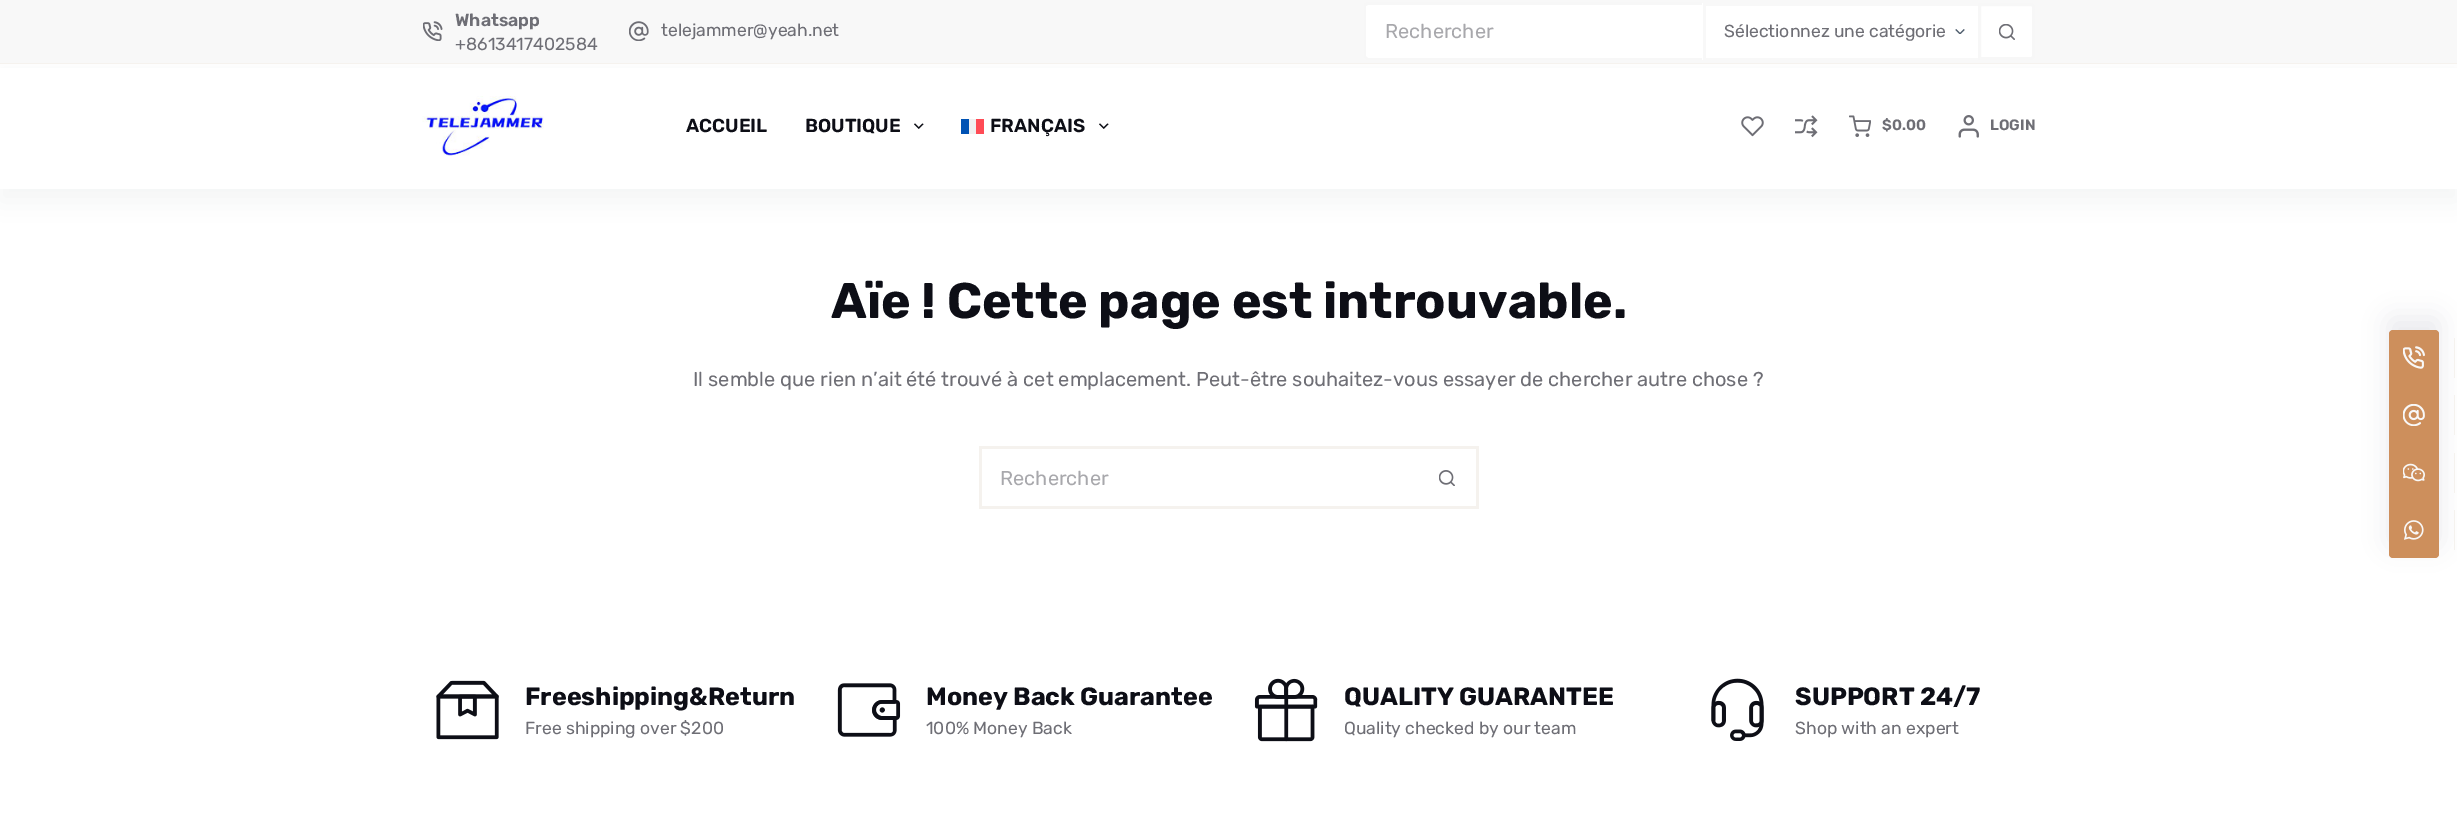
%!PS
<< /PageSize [2457 832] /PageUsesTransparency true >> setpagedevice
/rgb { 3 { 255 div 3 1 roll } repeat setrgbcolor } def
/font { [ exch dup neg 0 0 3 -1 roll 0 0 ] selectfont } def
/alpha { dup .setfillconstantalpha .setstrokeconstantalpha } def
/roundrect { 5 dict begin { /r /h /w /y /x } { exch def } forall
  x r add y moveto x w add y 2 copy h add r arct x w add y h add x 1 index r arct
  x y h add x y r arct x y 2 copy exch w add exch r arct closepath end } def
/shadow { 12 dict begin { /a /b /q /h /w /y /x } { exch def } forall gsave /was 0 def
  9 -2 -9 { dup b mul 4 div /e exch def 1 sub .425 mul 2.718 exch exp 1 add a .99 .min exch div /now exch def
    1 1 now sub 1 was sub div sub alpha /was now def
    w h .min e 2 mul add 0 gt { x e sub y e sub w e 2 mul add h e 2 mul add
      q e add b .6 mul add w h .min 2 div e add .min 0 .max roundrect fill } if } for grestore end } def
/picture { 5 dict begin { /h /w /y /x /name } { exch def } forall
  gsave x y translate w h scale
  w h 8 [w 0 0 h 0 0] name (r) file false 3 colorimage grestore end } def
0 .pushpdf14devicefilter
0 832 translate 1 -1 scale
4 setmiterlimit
255 255 255 rgb
0 0 2457 832 rectfill
44 62 80 rgb
0 76 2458 125 0 12.5 0.05 shadow
248 248 248 rgb
0 0 2457 63 rectfill
245 242 238 rgb
0 63 2457 1 rectfill
(img/1.rgb) 423 21 20 20 picture
(img/2.rgb) 629 21 20 20 picture
255 255 255 rgb
1368 3 moveto 1703 3 lineto 1703 60 lineto 1368 60 lineto 1366 60 1364 58 1364 56 curveto 1364 7 lineto 1364 5 1366 3 1368 3 curveto closepath fill
247 247 247 rgb
1368 2 moveto 1702 2 lineto 1702 60 lineto 1368 60 lineto 1365 60 1364 58 1364 56 curveto 1364 6 lineto 1364 4 1365 2 1368 2 curveto closepath 1368 5 moveto 1702 5 lineto 1702 58 lineto 1368 58 lineto 1367 57 1366 57 1366 56 curveto 1366 6 lineto closepath eofill
255 255 255 rgb
1706 6 272 52 rectfill
(img/3.rgb) 1955 29 10 5 picture
1979.5 4.5 moveto 2031 4.5 lineto 2032.5 4.5 2033.5 5.5 2033.5 7 curveto 2033.5 56 lineto 2033.5 57.5 2032.5 58.5 2031 58.5 curveto 1979.5 58.5 lineto closepath gsave fill grestore
247 247 247 rgb
3 setlinewidth
stroke
(img/4.rgb) 1999 24 16 16 picture
255 255 255 rgb
0 68 2457 121 rectfill
(img/5.rgb) 422 96 122 60 picture
(img/6.rgb) 914 123 10 6 picture
[
  [969 119 7 15 240 240 240]
  [976 119 8 15 255 75 85]
  [961 119 8 15 0 82 180]
] { aload pop rgb rectfill } forall
(img/6.rgb) 1099 123 10 6 picture
(img/7.rgb) 1741 116 23 21 picture
(img/8.rgb) 1795 115 23 23 picture
(img/9.rgb) 1849 115 22 22 picture
(img/10.rgb) 1958 115 21 23 picture
[
  [979 446 500 3 245 242 238]
  [979 506 437 3 245 242 238]
  [979 446 3 63 245 242 238]
  [1476 446 3 63 245 242 238]
  [1416 506 63 3 245 242 238]
] { aload pop rgb rectfill } forall
(img/11.rgb) 1439 470 16 16 picture
(img/12.rgb) 436 680 63 60 picture
(img/13.rgb) 837 683 64 54 picture
(img/14.rgb) 1254 678 64 64 picture
(img/15.rgb) 1711 678 53 63 picture
43 61 79 rgb
2389 318 50 227 4 12.5 0.1 shadow
205 143 92 rgb
2389 330 50 228 4 roundrect fill
(img/16.rgb) 2403 346 22 23 picture
245 242 238 rgb
2454 338 1 40 rectfill
(img/17.rgb) 2403 404 22 22 picture
2454 395 1 40 rectfill
(img/18.rgb) 2403 463 22 19 picture
2454 453 1 40 rectfill
(img/19.rgb) 2404 520 20 20 picture
2454 510 1 40 rectfill
/Rubik-SemiBold 17.5 font
110 110 117 rgb
455 26 moveto (Whatsapp) show
/Rubik-Regular 17.5 font
455 50 moveto (+8613417402584) show
661 36 moveto (telejammer@yeah.net) show
/Rubik-Regular 20 font
168 168 172 rgb
1385 38 moveto (Rechercher) show
/Rubik-Regular 17.5 font
110 110 117 rgb
1724 37 moveto (Sélectionnez une catégorie) show
/Rubik-SemiBold 18.75 font
13 14 22 rgb
[
  [(ACCUEIL) 686 132]
  [(BOUTIQUE) 805 132]
  [(FRANÇAIS) 990 132]
] { aload pop moveto show } forall
/Rubik-SemiBold 15 font
110 110 117 rgb
1882 130 moveto ($0.00) show
1990 130 moveto (LOGIN) show
/Rubik-Bold 50 font
13 14 22 rgb
831 318 moveto (Aïe ! Cette page est introuvable.) show
/Rubik-Regular 20 font
110 110 117 rgb
693 386 moveto (Il semble que rien n’ait été trouvé à cet emplacement. Peut-être souhaitez-vous essayer de chercher autre chose ?) show
168 168 172 rgb
1000 485 moveto (Rechercher) show
/Rubik-Bold 25 font
13 14 22 rgb
525 705 moveto (Freeshipping&Return) show
/Rubik-Regular 17.5 font
110 110 117 rgb
525 734 moveto (Free shipping over $200) show
/Rubik-Bold 25 font
13 14 22 rgb
926 705 moveto (Money Back Guarantee) show
/Rubik-Regular 17.5 font
110 110 117 rgb
926 734 moveto (100% Money Back) show
/Rubik-Bold 25 font
13 14 22 rgb
1344 705 moveto (QUALITY GUARANTEE) show
/Rubik-Regular 17.5 font
110 110 117 rgb
1344 734 moveto (Quality checked by our team) show
/Rubik-Bold 25 font
13 14 22 rgb
1795 705 moveto (SUPPORT 24/7) show
/Rubik-Regular 17.5 font
110 110 117 rgb
1795 734 moveto (Shop with an expert) show
.poppdf14devicefilter showpage
